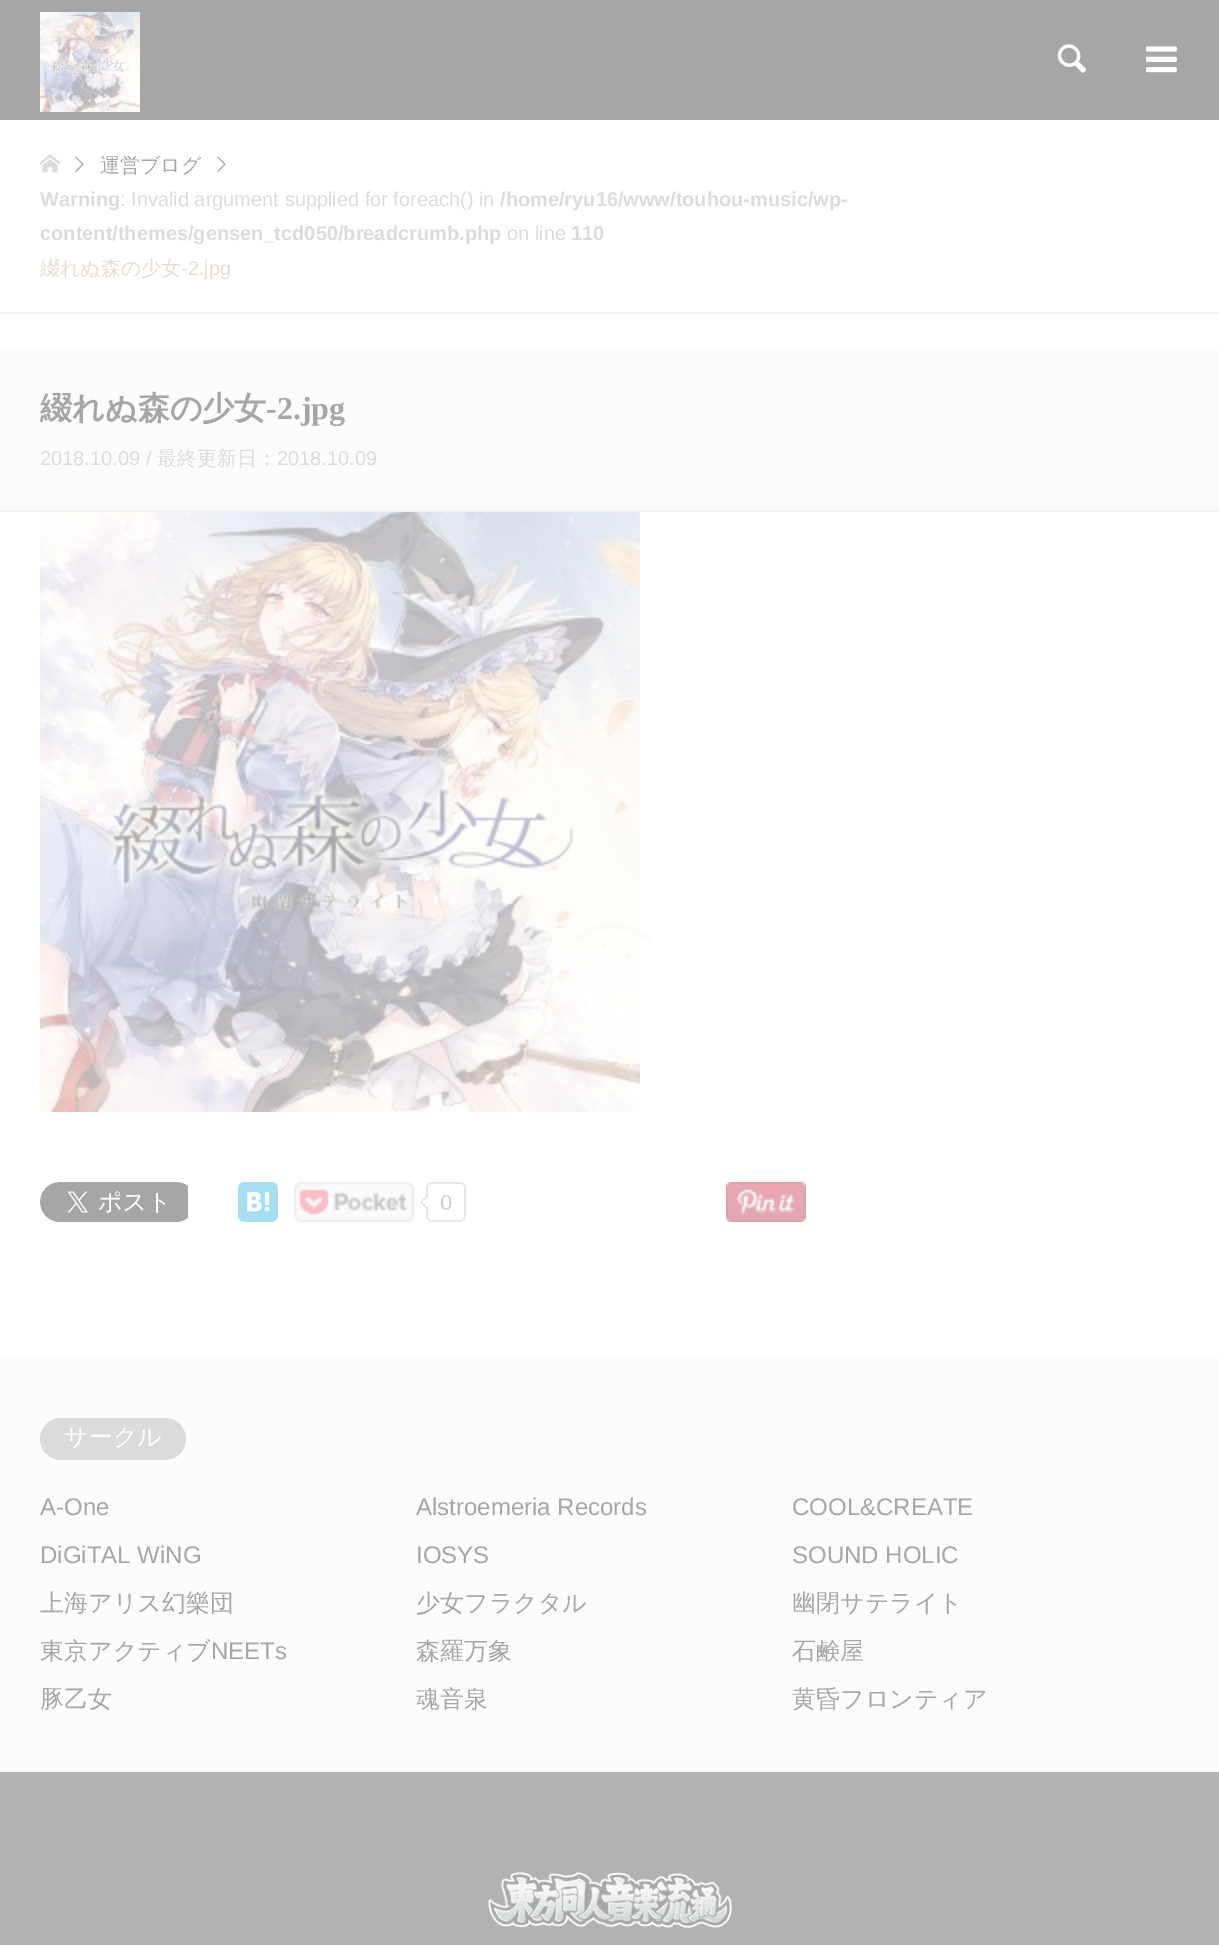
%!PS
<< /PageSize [1219 1945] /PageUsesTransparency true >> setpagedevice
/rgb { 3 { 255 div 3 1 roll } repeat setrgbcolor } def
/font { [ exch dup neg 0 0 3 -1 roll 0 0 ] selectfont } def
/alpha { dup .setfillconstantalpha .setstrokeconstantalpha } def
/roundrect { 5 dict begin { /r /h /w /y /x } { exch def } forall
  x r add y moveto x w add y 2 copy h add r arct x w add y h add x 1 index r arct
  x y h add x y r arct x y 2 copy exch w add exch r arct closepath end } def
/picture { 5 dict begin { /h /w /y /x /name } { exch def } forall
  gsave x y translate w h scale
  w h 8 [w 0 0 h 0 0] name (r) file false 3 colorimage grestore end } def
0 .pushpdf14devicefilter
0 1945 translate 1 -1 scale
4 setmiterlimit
255 255 255 rgb
0 0 1219 1945 rectfill
166 166 166 rgb
0 0 1219 120 rectfill
(img/1.rgb) 40 12 100 100 picture
(img/2.rgb) 1057 44 30 29 picture
(img/3.rgb) 1146 46 31 27 picture
243 243 243 rgb
0 312 1219 2 rectfill
(img/4.rgb) 40 154 20 19 picture
(img/5.rgb) 75 156 9 16 picture
(img/5.rgb) 217 156 9 16 picture
252 252 252 rgb
0 346 1219 164 rectfill
243 243 243 rgb
0 510 1219 2 rectfill
(img/6.rgb) 40 512 600 600 picture
(img/7.rgb) 40 1182 148 40 picture
(img/8.rgb) 238 1182 40 40 picture
(img/9.rgb) 294 1182 172 40 picture
(img/10.rgb) 726 1182 80 40 picture
0.03 alpha
182 158 132 rgb
6 setlinewidth
578 940 moveto 597.5 920.5 630.5 920.5 650 940 curveto stroke
1 alpha
252 252 252 rgb
0 1358 1219 414 rectfill
219 219 219 rgb
40 1418 146 42 21 roundrect fill
178 178 178 rgb
0 1772 1219 173 rectfill
(img/11.rgb) 488 1872 244 56 picture
/WenQuanYiZenHei-Medium 20 font
166 166 166 rgb
100 172 moveto (運営ブログ) show
/LiberationSans-Bold 20 font
219 219 219 rgb
40 206 moveto (Warning) show
/LiberationSans-Regular 20 font
120 206 moveto (: Invalid argument supplied for foreach\(\) in) show
/LiberationSans-Bold 20 font
500 206 moveto (/home/ryu16/www/touhou-music/wp-) show
40 240 moveto (content/themes/gensen_tcd050/breadcrumb.php) show
/LiberationSans-Regular 20 font
507 240 moveto (on line) show
/LiberationSans-Bold 20 font
571 240 moveto (110) show
/WenQuanYiZenHei-Medium 20 font
229 221 212 rgb
40 275 moveto (綴れぬ森の少女) show
/LiberationSans-Regular 20 font
181 275 moveto (-2.jpg) show
/WenQuanYiZenHei-Bold 32 font
166 166 166 rgb
40 419 moveto (綴れぬ森の少女) show
/LiberationSerif-Bold 32 font
266 419 moveto (-2.jpg) show
/LiberationSans-Regular 20 font
219 219 219 rgb
40 465 moveto (2018.10.09 /) show
/WenQuanYiZenHei-Medium 20 font
157 465 moveto (最終更新日：) show
/LiberationSans-Regular 20 font
277 465 moveto (2018.10.09) show
/WenQuanYiZenHei-Medium 24 font
255 255 255 rgb
64 1445 moveto (サークル) show
/LiberationSans-Regular 24 font
166 166 166 rgb
[
  [(A-One) 40 1515]
  [(Alstroemeria Records) 416 1515]
  [(COOL&CREATE) 792 1515]
  [(DiGiTAL WiNG) 40 1563]
  [(IOSYS) 416 1563]
  [(SOUND HOLIC) 792 1563]
] { aload pop moveto show } forall
/WenQuanYiZenHei-Medium 24 font
[
  [(上海アリス幻樂団) 40 1611]
  [(少女フラクタル) 416 1611]
  [(幽閉サテライト) 792 1611]
  [(東京アクティブ) 40 1659]
] { aload pop moveto show } forall
/LiberationSans-Regular 24 font
211 1659 moveto (NEETs) show
/WenQuanYiZenHei-Medium 24 font
[
  [(森羅万象) 416 1659]
  [(石鹸屋) 792 1659]
  [(豚乙女) 40 1707]
  [(魂音泉) 416 1707]
  [(黄昏フロンティア) 792 1707]
] { aload pop moveto show } forall
.poppdf14devicefilter showpage
